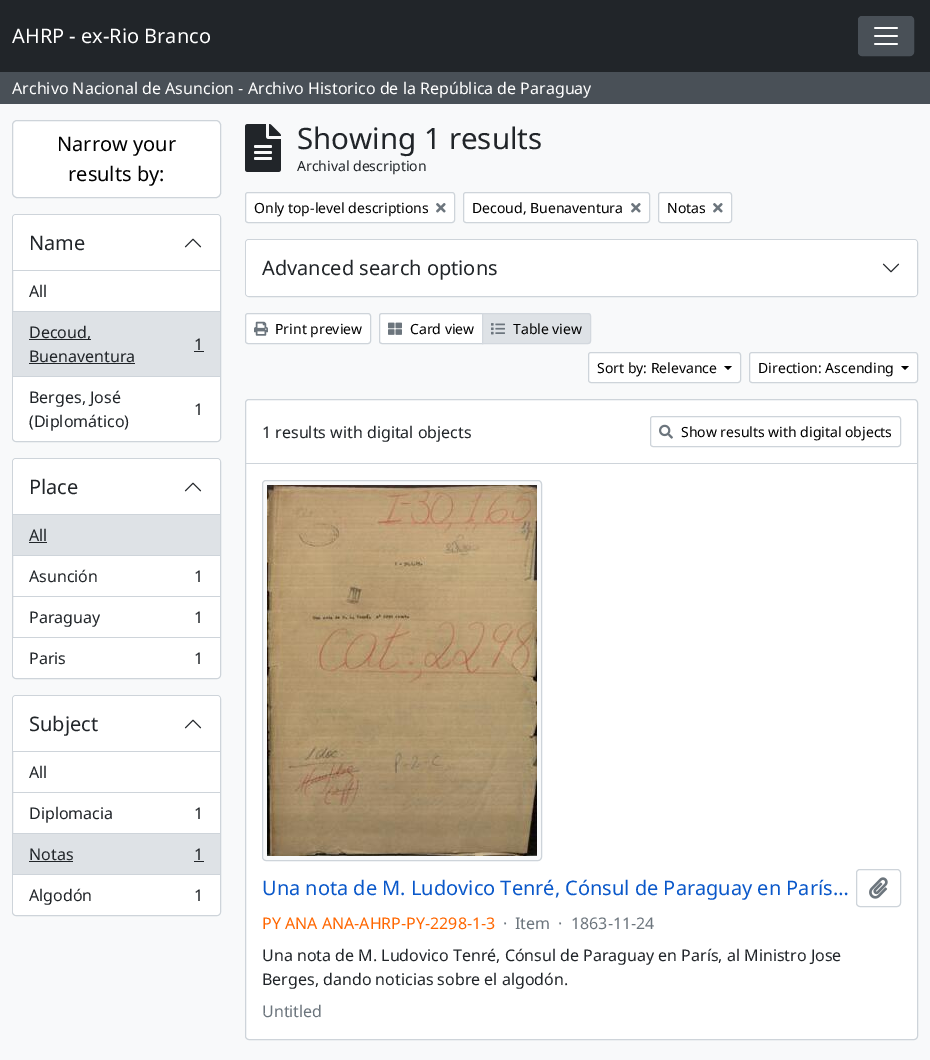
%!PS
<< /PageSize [930 1060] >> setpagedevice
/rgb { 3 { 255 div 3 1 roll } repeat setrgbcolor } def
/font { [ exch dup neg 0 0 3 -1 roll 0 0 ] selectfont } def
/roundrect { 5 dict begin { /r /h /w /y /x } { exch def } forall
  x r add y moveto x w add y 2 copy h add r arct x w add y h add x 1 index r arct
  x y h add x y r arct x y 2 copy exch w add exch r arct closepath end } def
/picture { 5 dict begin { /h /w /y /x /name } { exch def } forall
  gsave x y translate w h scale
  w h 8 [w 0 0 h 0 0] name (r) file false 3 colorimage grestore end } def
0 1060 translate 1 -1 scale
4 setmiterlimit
248 249 250 rgb
0 0 930 1060 rectfill
33 37 41 rgb
0 0 930 72 rectfill
73 80 87 rgb
858.5 16.5 55 39 3.5 roundrect gsave fill grestore
stroke
(img/1.rgb) 874 27 24 18 picture
0 72 930 32 rectfill
255 255 255 rgb
12.5 120.5 208 77 4.5 roundrect gsave fill grestore
206 212 218 rgb
stroke
255 255 255 rgb
12.5 214.5 208 227 3.5 roundrect gsave fill grestore
206 212 218 rgb
stroke
255 255 255 rgb
16 215 moveto 217 215 lineto 218.5 215 220 216.5 220 218 curveto 220 271 lineto 13 271 lineto 13 218 lineto 13 216.5 14.5 215 16 215 curveto closepath fill
206 212 218 rgb
13 270 207 1 rectfill
(img/2.rgb) 184 238 18 10 picture
[
  [13 311 207 1 206 212 218]
  [13 312 207 64 222 226 230]
  [13 376 207 1 206 212 218]
  [29 339 62 1 33 37 41]
  [194 351 10 1 33 37 41]
  [29 363 106 1 33 37 41]
] { aload pop rgb rectfill } forall
255 255 255 rgb
13 377 moveto 220 377 lineto 220 437 lineto 220 439 218 441 216 441 curveto 17 441 lineto 15 441 13 439 13 437 curveto closepath fill
12.5 458.5 208 220 3.5 roundrect gsave fill grestore
206 212 218 rgb
stroke
255 255 255 rgb
16 459 moveto 217 459 lineto 218.5 459 220 460.5 220 462 curveto 220 515 lineto 13 515 lineto 13 462 lineto 13 460.5 14.5 459 16 459 curveto closepath fill
206 212 218 rgb
13 514 207 1 rectfill
(img/2.rgb) 184 482 18 10 picture
[
  [13 515 207 40 222 226 230]
  [13 555 207 1 206 212 218]
  [29 542 18 1 33 37 41]
  [13 596 207 1 206 212 218]
  [13 637 207 1 206 212 218]
] { aload pop rgb rectfill } forall
255 255 255 rgb
13 638 moveto 220 638 lineto 220 674 lineto 220 676 218 678 216 678 curveto 17 678 lineto 15 678 13 676 13 674 curveto closepath fill
12.5 695.5 208 220 3.5 roundrect gsave fill grestore
206 212 218 rgb
stroke
255 255 255 rgb
16 696 moveto 217 696 lineto 218.5 696 220 697.5 220 699 curveto 220 752 lineto 13 752 lineto 13 699 lineto 13 697.5 14.5 696 16 696 curveto closepath fill
206 212 218 rgb
13 751 207 1 rectfill
(img/2.rgb) 184 719 18 10 picture
[
  [13 792 207 1 206 212 218]
  [13 833 207 1 206 212 218]
  [13 834 207 40 222 226 230]
  [13 874 207 1 206 212 218]
  [29 861 44 1 33 37 41]
  [194 861 10 1 33 37 41]
] { aload pop rgb rectfill } forall
255 255 255 rgb
13 875 moveto 220 875 lineto 220 911 lineto 220 913 218 915 216 915 curveto 17 915 lineto 15 915 13 913 13 911 curveto closepath fill
(img/3.rgb) 245 124 36 48 picture
245.5 192.5 209 30 2.5 roundrect gsave fill grestore
206 212 218 rgb
stroke
(img/4.rgb) 436 203 10 10 picture
255 255 255 rgb
463.5 192.5 186 30 2.5 roundrect gsave fill grestore
206 212 218 rgb
stroke
(img/4.rgb) 631 203 10 10 picture
255 255 255 rgb
658.5 192.5 73 30 2.5 roundrect gsave fill grestore
206 212 218 rgb
stroke
(img/4.rgb) 713 203 10 10 picture
245.5 239.5 672 57 3.5 roundrect stroke
255 255 255 rgb
246 240 671 56 3 roundrect fill
(img/5.rgb) 882 263 18 10 picture
245.5 313.5 125 30 2.5 roundrect gsave fill grestore
206 212 218 rgb
stroke
(img/6.rgb) 254 321 14 15 picture
255 255 255 rgb
382 313.5 moveto 482.5 313.5 lineto 482.5 343.5 lineto 382 343.5 lineto 380.5 343.5 379.5 342.5 379.5 341 curveto 379.5 316 lineto 379.5 314.5 380.5 313.5 382 313.5 curveto closepath gsave fill grestore
206 212 218 rgb
stroke
(img/7.rgb) 388 322 14 13 picture
222 226 230 rgb
482.5 313.5 moveto 588 313.5 lineto 589.5 313.5 590.5 314.5 590.5 316 curveto 590.5 341 lineto 590.5 342.5 589.5 343.5 588 343.5 curveto 482.5 343.5 lineto closepath gsave fill grestore
211 216 222 rgb
stroke
(img/8.rgb) 491 323 14 12 picture
255 255 255 rgb
588.5 352.5 152 30 2.5 roundrect gsave fill grestore
206 212 218 rgb
stroke
0 0 0 rgb
724 366 moveto 732 366 lineto 728 370 lineto closepath fill
255 255 255 rgb
749.5 352.5 168 30 2.5 roundrect gsave fill grestore
206 212 218 rgb
stroke
0 0 0 rgb
901 366 moveto 909 366 lineto 905 370 lineto closepath fill
255 255 255 rgb
245.5 399.5 672 640 3.5 roundrect gsave fill grestore
206 212 218 rgb
stroke
246 463 671 1 rectfill
650.5 416.5 250 30 2.5 roundrect stroke
(img/9.rgb) 659 424 14 15 picture
248 249 250 rgb
262.5 480.5 279 380 3.5 roundrect gsave fill grestore
206 212 218 rgb
stroke
(img/10.rgb) 267 485 270 371 picture
856.5 869.5 44 37 3.5 roundrect stroke
(img/11.rgb) 869 877 19 22 picture
/NotoSans-Regular 20 font
255 255 255 rgb
12 43 moveto (AHRP - ex-Rio Branco) show
/NotoSans-Regular 16 font
12 94 moveto (Archivo Nacional de Asuncion - Archivo Historico de la República de Paraguay) show
/NotoSans-Regular 20 font
0 0 0 rgb
57 151 moveto (Narrow your) show
68 181 moveto (results by:) show
33 37 41 rgb
29 250 moveto (Name) show
/NotoSans-Regular 16 font
[
  [(All) 29 297]
  [(Decoud,) 29 338]
  [(1) 194 350]
  [(Buenaventura) 29 362]
  [(Berges, José) 29 403]
  [(1) 194 415]
  [(\(Diplomático\)) 29 427]
] { aload pop moveto show } forall
/NotoSans-Regular 20 font
29 494 moveto (Place) show
/NotoSans-Regular 16 font
[
  [(All) 29 541]
  [(Asunción) 29 582]
  [(1) 194 582]
  [(Paraguay) 29 623]
  [(1) 194 623]
  [(Paris) 29 664]
  [(1) 194 664]
] { aload pop moveto show } forall
/NotoSans-Regular 20 font
29 731 moveto (Subject) show
/NotoSans-Regular 16 font
[
  [(All) 29 778]
  [(Diplomacia) 29 819]
  [(1) 194 819]
  [(Notas) 29 860]
  [(1) 194 860]
  [(Algodón) 29 901]
  [(1) 194 901]
] { aload pop moveto show } forall
/NotoSans-Regular 29.5 font
297 149 moveto (Showing 1 results) show
/NotoSans-Regular 14 font
297 171 moveto (Archival description) show
0 0 0 rgb
[
  [(Only top-level descriptions) 254 213]
  [(Decoud, Buenaventura) 472 213]
  [(Notas) 667 213]
] { aload pop moveto show } forall
/NotoSans-Regular 20 font
33 37 41 rgb
262 275 moveto (Advanced search options) show
/NotoSans-Regular 14 font
0 0 0 rgb
[
  [(Print preview) 275 334]
  [(Card view) 410 334]
  [(Table view) 513 334]
  [(Sort by: Relevance) 597 373]
  [(Direction: Ascending) 758 373]
] { aload pop moveto show } forall
/NotoSans-Regular 16 font
33 37 41 rgb
262 438 moveto (1 results with digital objects) show
/NotoSans-Regular 14 font
0 0 0 rgb
681 437 moveto (Show results with digital objects) show
/NotoSans-Regular 20 font
10 88 202 rgb
262 895 moveto (Una nota de M. Ludovico Tenré, Cónsul de Paraguay en París…) show
/NotoSans-Regular 16 font
255 102 0 rgb
262 929 moveto (PY ANA ANA-AHRP-PY-2298-1-3) show
108 117 125 rgb
[
  [(·) 503 929]
  [(Item) 515 929]
  [(·) 558 929]
  [(1863-11-24) 571 929]
] { aload pop moveto show } forall
33 37 41 rgb
262 961 moveto (Una nota de M. Ludovico Tenré, Cónsul de Paraguay en París, al Ministro Jose) show
262 985 moveto (Berges, dando noticias sobre el algodón.) show
108 117 125 rgb
262 1017 moveto (Untitled) show
showpage
